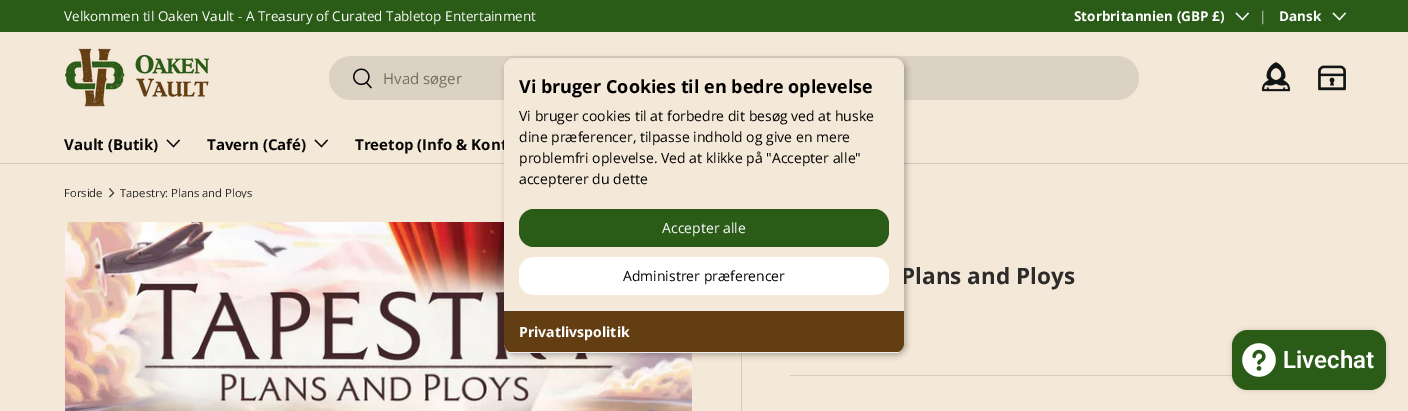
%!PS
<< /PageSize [1408 411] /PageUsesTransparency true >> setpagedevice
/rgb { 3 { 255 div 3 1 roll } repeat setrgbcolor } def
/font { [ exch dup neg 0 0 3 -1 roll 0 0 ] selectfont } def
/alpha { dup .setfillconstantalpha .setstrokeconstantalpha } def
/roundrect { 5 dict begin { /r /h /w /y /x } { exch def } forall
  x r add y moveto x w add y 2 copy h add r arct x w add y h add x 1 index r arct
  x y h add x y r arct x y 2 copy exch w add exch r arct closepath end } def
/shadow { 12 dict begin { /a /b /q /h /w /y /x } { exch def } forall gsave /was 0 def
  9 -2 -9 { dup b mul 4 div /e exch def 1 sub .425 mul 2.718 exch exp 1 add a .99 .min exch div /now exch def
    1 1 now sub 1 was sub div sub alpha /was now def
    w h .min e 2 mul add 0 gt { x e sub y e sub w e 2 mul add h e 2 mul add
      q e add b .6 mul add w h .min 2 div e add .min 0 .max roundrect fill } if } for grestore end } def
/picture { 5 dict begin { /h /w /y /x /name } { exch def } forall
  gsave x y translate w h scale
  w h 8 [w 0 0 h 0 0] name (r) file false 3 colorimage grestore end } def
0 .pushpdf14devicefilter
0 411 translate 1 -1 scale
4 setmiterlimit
244 232 216 rgb
0 0 1408 411 rectfill
42 91 23 rgb
0 0 1408 32 rectfill
255 255 255 rgb
1.2 setlinewidth
1248.5 13 moveto 1242.5 19.5 lineto 1236 13 lineto stroke
1345.5 13 moveto 1339.5 19.5 lineto 1333 13 lineto stroke
208 198 185 rgb
0 163 1408 1 rectfill
(img/1.rgb) 64 48 145 59 picture
220 210 195 rgb
329 56 810 44 22 roundrect fill
(img/2.rgb) 353 68 19 21 picture
(img/3.rgb) 1261 62 30 30 picture
(img/4.rgb) 1318 65 28 26 picture
7 7 7 rgb
179.5 140 moveto 173.5 146.5 lineto 167 140 lineto stroke
327.5 140 moveto 321.5 146.5 lineto 315 140 lineto stroke
(img/5.rgb) 65 222 627 189 picture
214 204 190 rgb
741 353 1 58 rectfill
0 0 0 rgb
506 60 400 295 10 3 0.15 shadow
506 60 400 295 10 3 0.15 shadow
42 43 42 rgb
0.8 setlinewidth
109.5 188.5 moveto 113.5 193 lineto 109.5 197 lineto stroke
214 204 190 rgb
790 375 443 1 rectfill
0 0 0 rgb
1232 330 154 60 16 2.5 0.15 shadow
42 91 23 rgb
1232 330 154 60 16 roundrect fill
(img/6.rgb) 1242 343 34 34 picture
/OpenSans-Regular 13.5 font
255 255 255 rgb
64 21 moveto (Velkommen til Oaken Vault - A Treasury of Curated Tabletop Entertainment) show
/OpenSans-Bold 13.5 font
1074 21 moveto (Storbritannien \(GBP £\)) show
/OpenSans-Regular 13.5 font
191 206 185 rgb
1259 21 moveto (|) show
/OpenSans-Bold 13.5 font
255 255 255 rgb
1279 21 moveto (Dansk) show
/OpenSans-Regular 15 font
114 109 101 rgb
383 84 moveto (Hvad søger) show
/OpenSans-Bold 15 font
7 7 7 rgb
[
  [(Vault \(Butik\)) 64 150]
  [(Tavern \(Café\)) 207 150]
  [(Treetop \(Info & Kont) 355 150]
] { aload pop moveto show } forall
/OpenSans-Regular 11.25 font
42 43 42 rgb
64 197 moveto (Forside) show
gsave
120 187 133 11 rectclip
120 197 moveto (Tapestry: Plans and Ploys) show
grestore
/OpenSans-Bold 22.5 font
901 284 moveto (Plans and Ploys) show
244 232 216 rgb
504 58 400 295 10 roundrect fill
98 62 18 rgb
504 310 moveto 904 310 lineto 904 343 lineto 904 348.5 899.5 353 894 353 curveto 514 353 lineto 508.5 353 504 348.5 504 343 curveto closepath fill
/OpenSans-Bold 14 font
255 255 255 rgb
519 337 moveto (Privatlivspolitik) show
519 257 370 38 15 roundrect fill
/OpenSans-Regular 14 font
0 0 0 rgb
623 281 moveto (Administrer præferencer) show
42 91 23 rgb
519 209 370 38 15 roundrect fill
255 255 255 rgb
662 233 moveto (Accepter alle) show
0 0 0 rgb
[
  [(accepterer du dette) 519 184]
  [(problemfri oplevelse. Ved at klikke på "Accepter alle") 519 163]
  [(dine præferencer, tilpasse indhold og give en mere) 519 142]
  [(Vi bruger cookies til at forbedre dit besøg ved at huske) 519 121]
] { aload pop moveto show } forall
/OpenSans-Bold 18 font
519 93 moveto (Vi bruger Cookies til en bedre oplevelse) show
gsave
504 58 400 295 10 roundrect clip newpath
238 238 238 rgb
504 352 400 1 rectfill
grestore
238 238 238 rgb
504 310 400 1 rectfill
/Roboto-SemiBold 24 font
255 255 255 rgb
1283 368 moveto (Livechat) show
.poppdf14devicefilter showpage
